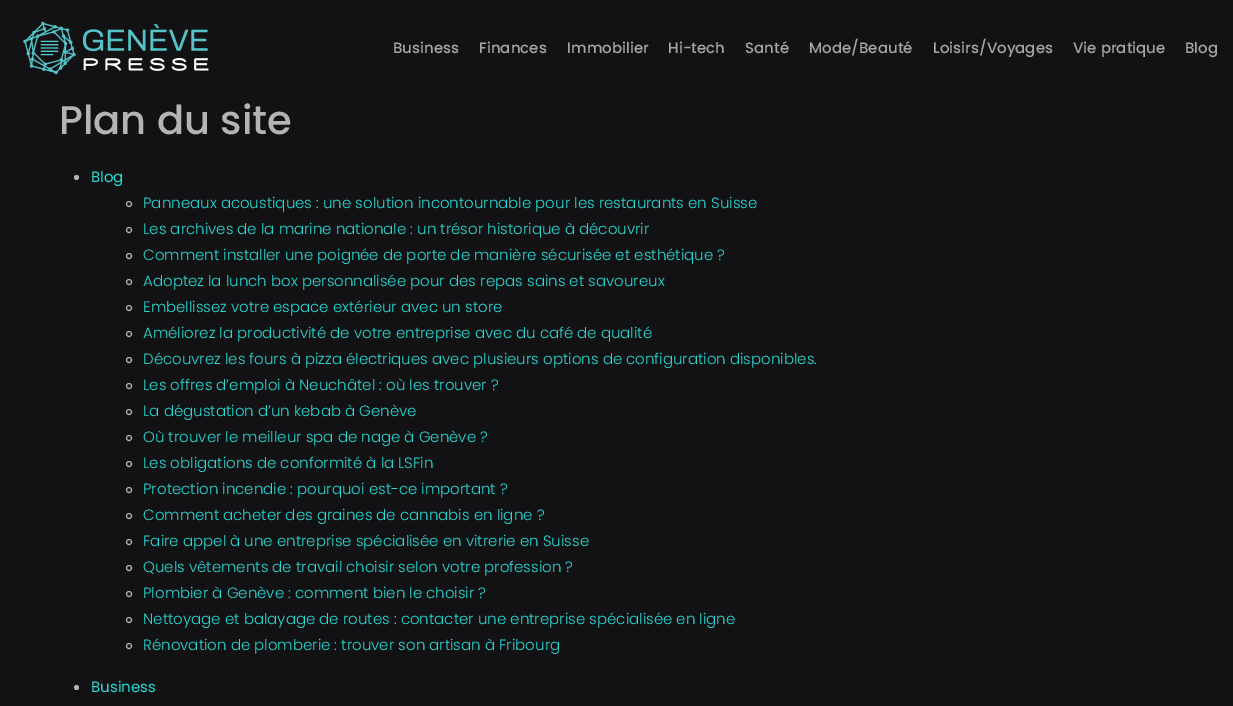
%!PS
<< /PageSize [1233 706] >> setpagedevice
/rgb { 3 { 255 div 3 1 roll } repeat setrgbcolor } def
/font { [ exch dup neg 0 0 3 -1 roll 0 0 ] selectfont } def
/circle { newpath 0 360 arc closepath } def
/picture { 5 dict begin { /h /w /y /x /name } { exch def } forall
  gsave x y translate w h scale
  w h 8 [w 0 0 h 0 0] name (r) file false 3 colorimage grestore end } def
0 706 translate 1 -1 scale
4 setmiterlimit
18 18 20 rgb
0 0 1233 706 rectfill
(img/1.rgb) 23 21 186 54 picture
180 180 180 rgb
76.5 177.5 2.5 circle fill
129 204 2.5 circle stroke
129 230 2.5 circle stroke
129 256 2.5 circle stroke
129 282 2.5 circle stroke
129 308 2.5 circle stroke
129 334 2.5 circle stroke
129 360 2.5 circle stroke
129 386 2.5 circle stroke
129 412 2.5 circle stroke
129 438 2.5 circle stroke
129 464 2.5 circle stroke
129 490 2.5 circle stroke
129 516 2.5 circle stroke
129 542 2.5 circle stroke
129 568 2.5 circle stroke
129 594 2.5 circle stroke
129 620 2.5 circle stroke
129 646 2.5 circle stroke
76.5 687.5 2.5 circle fill
/Poppins-Medium 15 font
165 165 166 rgb
[
  [(Business) 393 53]
  [(Finances) 479 53]
  [(Immobilier) 567 53]
  [(Hi-tech) 668 53]
  [(Santé) 745 53]
  [(Mode/Beauté) 809 53]
  [(Loisirs/Voyages) 933 53]
  [(Vie pratique) 1073 53]
  [(Blog) 1185 53]
] { aload pop moveto show } forall
/Poppins-Medium 40 font
180 180 180 rgb
59 134 moveto (Plan du site) show
/Poppins-Regular 15 font
41 217 213 rgb
91 182 moveto (Blog) show
/Poppins-Light 15 font
[
  [(Panneaux acoustiques : une solution incontournable pour les restaurants en Suisse) 143 208]
  [(Les archives de la marine nationale : un trésor historique à découvrir) 143 234]
  [(Comment installer une poignée de porte de manière sécurisée et esthétique ?) 143 260]
  [(Adoptez la lunch box personnalisée pour des repas sains et savoureux) 143 286]
  [(Embellissez votre espace extérieur avec un store) 143 312]
  [(Améliorez la productivité de votre entreprise avec du café de qualité) 143 338]
  [(Découvrez les fours à pizza électriques avec plusieurs options de configuration disponibles.) 143 364]
  [(Les offres d’emploi à Neuchâtel : où les trouver ?) 143 390]
  [(La dégustation d’un kebab à Genève) 143 416]
  [(Où trouver le meilleur spa de nage à Genève ?) 143 442]
  [(Les obligations de conformité à la LSFin) 143 468]
  [(Protection incendie : pourquoi est-ce important ?) 143 494]
  [(Comment acheter des graines de cannabis en ligne ?) 143 520]
  [(Faire appel à une entreprise spécialisée en vitrerie en Suisse) 143 546]
  [(Quels vêtements de travail choisir selon votre profession ?) 143 572]
  [(Plombier à Genève : comment bien le choisir ?) 143 598]
  [(Nettoyage et balayage de routes : contacter une entreprise spécialisée en ligne) 143 624]
  [(Rénovation de plomberie : trouver son artisan à Fribourg) 143 650]
] { aload pop moveto show } forall
/Poppins-Regular 15 font
91 692 moveto (Business) show
showpage
